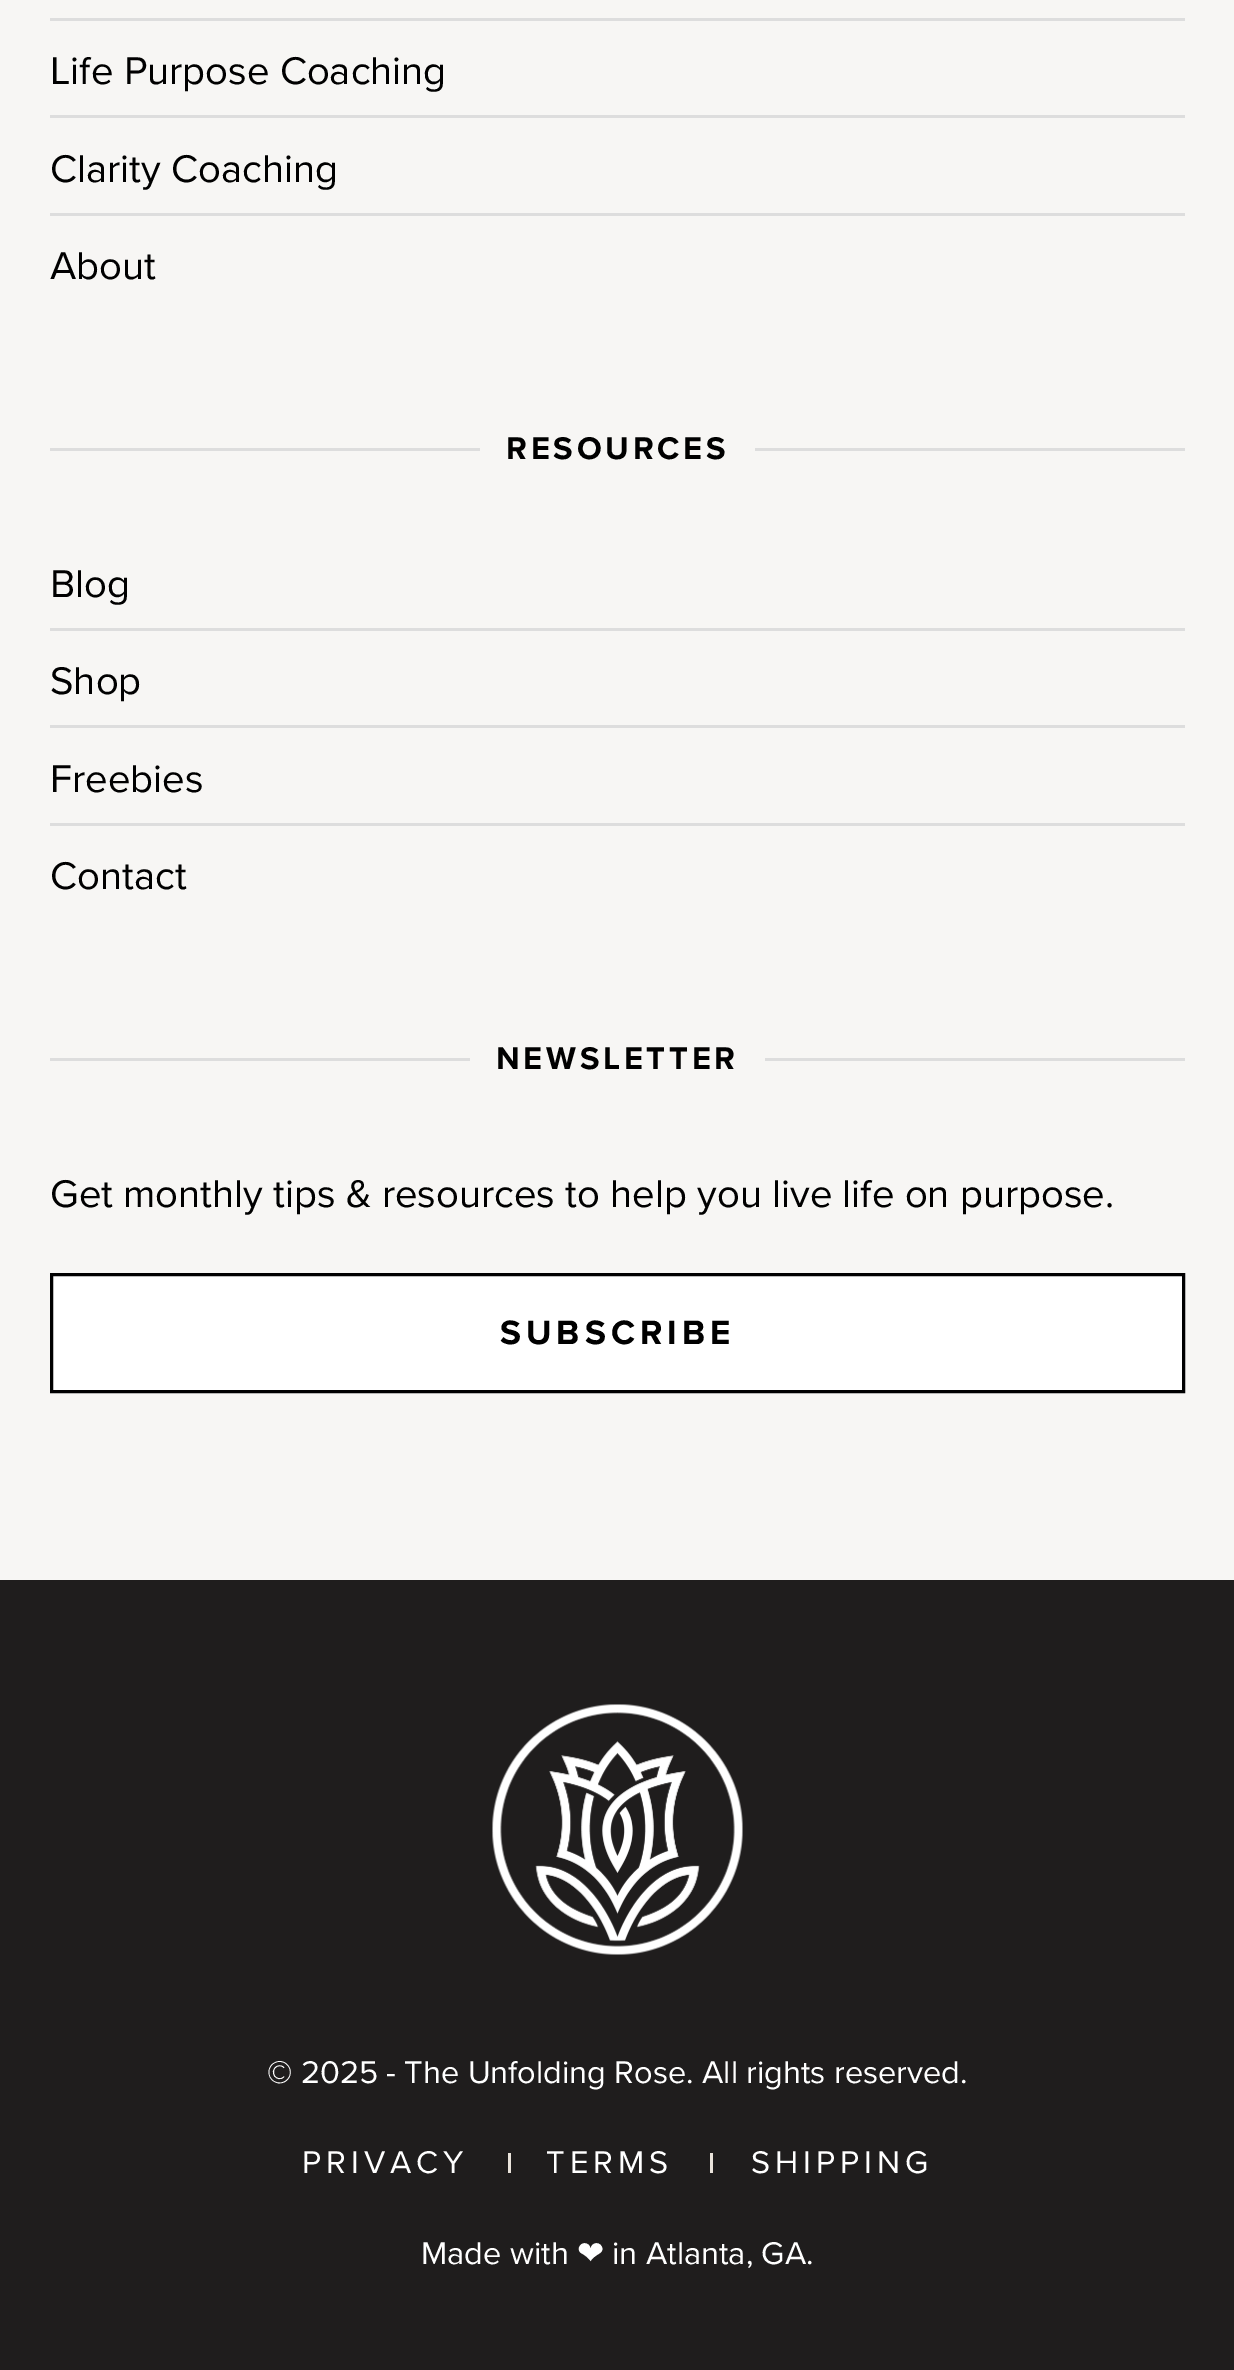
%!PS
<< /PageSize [1234 2370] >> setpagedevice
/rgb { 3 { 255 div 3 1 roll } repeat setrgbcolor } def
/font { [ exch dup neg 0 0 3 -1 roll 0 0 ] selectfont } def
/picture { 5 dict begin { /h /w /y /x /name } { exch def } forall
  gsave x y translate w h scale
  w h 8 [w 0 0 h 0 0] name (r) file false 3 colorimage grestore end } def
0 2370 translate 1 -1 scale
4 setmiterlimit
247 246 244 rgb
0 0 1234 2370 rectfill
[
  [50 18 1135 3 221 221 221]
  [50 115 1135 3 221 221 221]
  [50 213 1135 3 221 221 221]
  [50 448 430 3 221 221 221]
  [755 448 430 3 221 221 221]
  [50 628 1135 3 221 221 221]
  [50 725 1135 3 221 221 221]
  [50 823 1135 3 221 221 221]
  [50 1058 420 3 221 221 221]
  [765 1058 420 3 221 221 221]
] { aload pop rgb rectfill } forall
255 255 255 rgb
51.5 1274.5 moveto 1183.5 1274.5 lineto 1183.5 1391.5 lineto 51.5 1391.5 lineto closepath gsave fill grestore
0 0 0 rgb
3 setlinewidth
stroke
31 29 29 rgb
0 1580 1234 790 rectfill
(img/1.rgb) 492 1704 251 251 picture
233 227 219 rgb
508 2153 3 20 rectfill
710 2153 3 20 rectfill
/ProximaNova-Regular 40 font
0 0 0 rgb
[
  [(Life Purpose Coaching) 50 84]
  [(Clarity Coaching) 50 182]
  [(About) 50 279]
] { aload pop moveto show } forall
/ProximaNova-Bold 32.5 font
506 459 moveto 3.75 0 (RESOURCES) ashow
/ProximaNova-Regular 40 font
[
  [(Blog) 50 597]
  [(Shop) 50 694]
  [(Freebies) 50 792]
  [(Contact) 50 889]
] { aload pop moveto show } forall
/ProximaNova-Bold 32.5 font
496 1069 moveto 3.75 0 (NEWSLETTER) ashow
/ProximaNova-Regular 40 font
50 1207 moveto (Get monthly tips & resources to help you live life on purpose.) show
/ProximaNova-Bold 35 font
500 1344 moveto 5 0 (SUBSCRIBE) ashow
/ProximaNova-Regular 32.5 font
255 255 255 rgb
267 2083 moveto (© 2025 - The Unfolding Rose. All rights reserved.) show
302 2173 moveto 5 0 (PRIVACY) ashow
546 2173 moveto 5 0 (TERMS) ashow
751 2173 moveto 5 0 (SHIPPING) ashow
421 2264 moveto (Made with) show
/DejaVuSans-Regular 32.5 font
577 2264 moveto (❤) show
/ProximaNova-Regular 32.5 font
612 2264 moveto (in Atlanta, GA.) show
showpage
